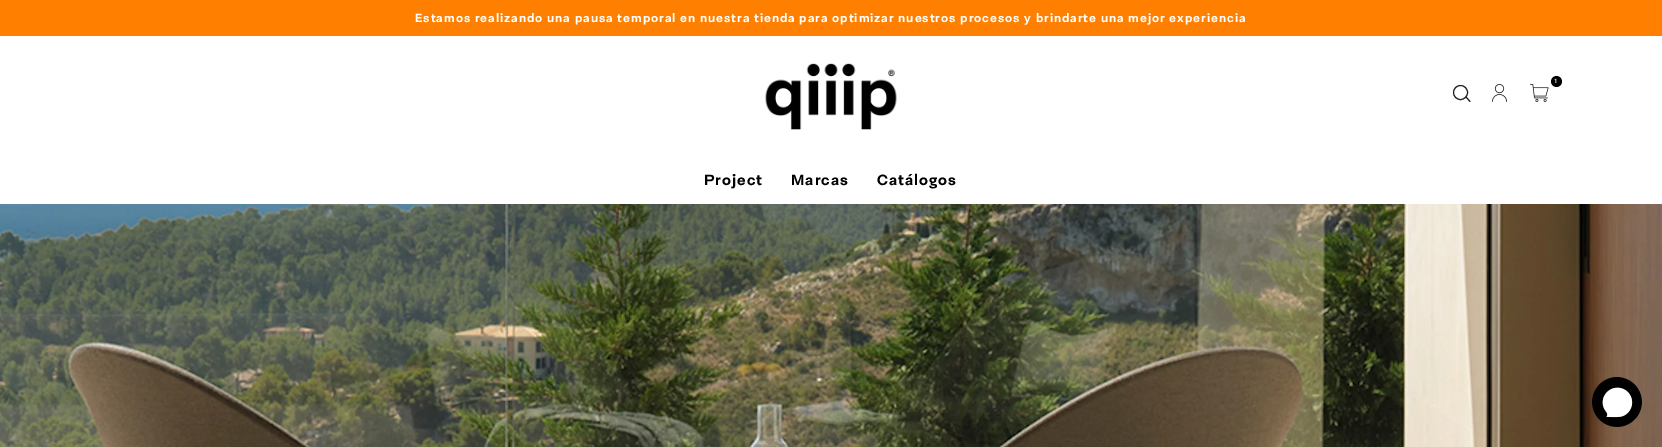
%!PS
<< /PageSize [1662 447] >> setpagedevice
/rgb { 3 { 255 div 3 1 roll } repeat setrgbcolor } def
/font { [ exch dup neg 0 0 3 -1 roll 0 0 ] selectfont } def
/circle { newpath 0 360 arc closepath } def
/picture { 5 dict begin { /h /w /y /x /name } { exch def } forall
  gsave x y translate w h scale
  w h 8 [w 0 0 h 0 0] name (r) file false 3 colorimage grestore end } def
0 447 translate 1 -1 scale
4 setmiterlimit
255 255 255 rgb
0 0 1662 447 rectfill
255 128 0 rgb
0 0 1662 36 rectfill
(img/1.rgb) 765 63 132 67 picture
0 0 0 rgb
1556.5 81.5 5.5 circle fill
(img/2.rgb) 1530 84 19 18 picture
29 29 27 rgb
1460.5 92.5 7 circle stroke
1 setlinecap
1 setlinejoin
1466 97 moveto 1470 101.5 lineto stroke
(img/3.rgb) 1492 84 15 18 picture
(img/4.rgb) 0 204 1662 243 picture
(img/5.rgb) 1592 377 50 50 picture
/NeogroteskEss-Bold 12 font
255 255 255 rgb
415 22 moveto 1 0 (Estamos realizando una pausa temporal en nuestra tienda para optimizar nuestros procesos y brindarte una mejor experiencia) ashow
/Roboto-Regular 6 font
1554 83 moveto (1) show
/NeogroteskEss-Bold 15 font
0 0 0 rgb
704 185 moveto 1 0 (Project) ashow
791 185 moveto 1 0 (Marcas) ashow
877 185 moveto 1 0 (Catálogos) ashow
showpage
